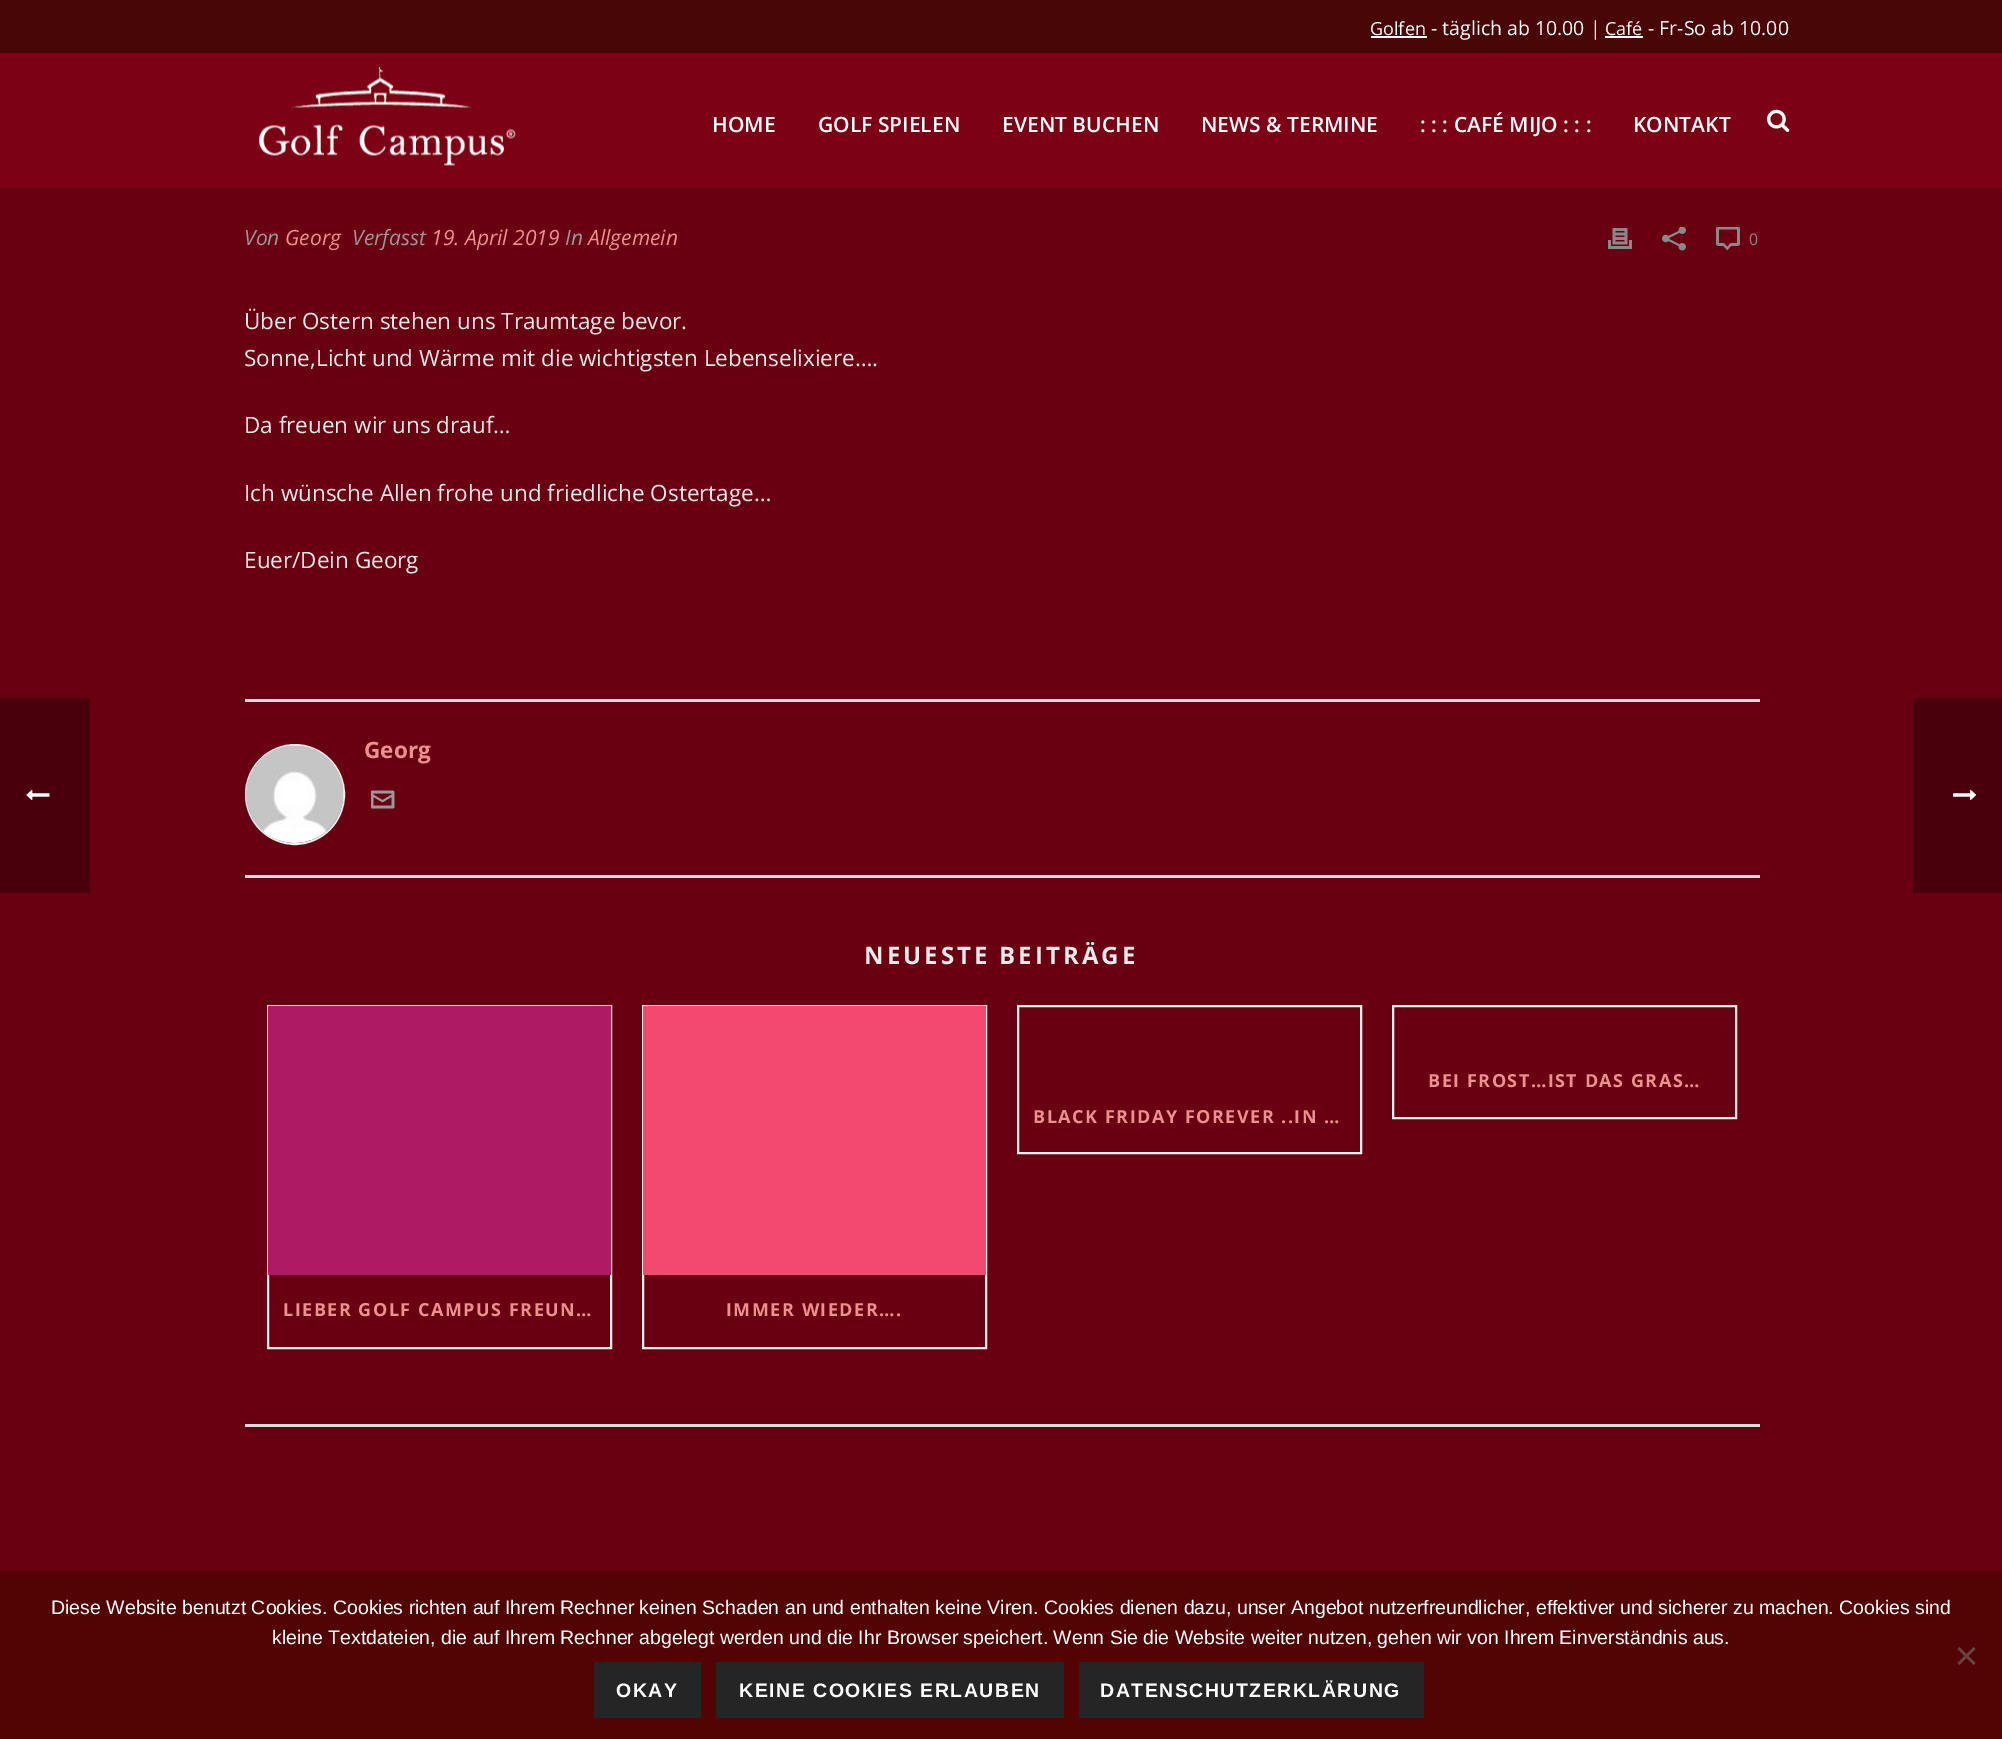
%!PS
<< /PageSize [2002 1739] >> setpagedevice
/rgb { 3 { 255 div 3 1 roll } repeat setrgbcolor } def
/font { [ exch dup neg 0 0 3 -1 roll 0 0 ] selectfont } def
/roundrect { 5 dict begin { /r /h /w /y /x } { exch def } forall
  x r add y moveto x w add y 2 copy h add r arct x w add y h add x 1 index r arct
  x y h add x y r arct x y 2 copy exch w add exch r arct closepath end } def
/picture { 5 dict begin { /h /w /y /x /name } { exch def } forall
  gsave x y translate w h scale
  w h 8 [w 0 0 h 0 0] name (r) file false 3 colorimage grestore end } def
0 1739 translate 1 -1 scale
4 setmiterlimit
105 0 17 rgb
0 0 2002 1739 rectfill
74 0 12 rgb
0 698 90 195 rectfill
(img/1.rgb) 26 789 24 12 picture
[
  [0 0 2002 51 72 6 6]
  [0 51 2002 2 71 2 2]
  [1371 36 56 2 255 255 255]
  [1605 36 38 2 255 255 255]
  [0 188 2002 2 89 8 8]
  [0 53 2002 135 124 1 20]
] { aload pop rgb rectfill } forall
(img/2.rgb) 259 66 257 100 picture
(img/3.rgb) 1767 109 23 23 picture
(img/4.rgb) 1608 228 24 21 picture
(img/5.rgb) 1662 227 24 24 picture
(img/6.rgb) 1716 227 24 24 picture
221 221 221 rgb
245 699 1515 3 rectfill
245 875 1515 3 rectfill
238 238 238 rgb
2 setlinewidth
246 745 98 99 49 roundrect stroke
(img/7.rgb) 246 745 98 98 picture
(img/8.rgb) 371 790 24 19 picture
221 221 221 rgb
245 1424 1515 3 rectfill
239 239 239 rgb
1393 1006 343 112 rectstroke
1018 1006 343 147 rectstroke
268 1006 343 342 rectstroke
173 27 100 rgb
268 1006 343 269 rectfill
239 239 239 rgb
643 1006 343 342 rectstroke
243 73 112 rgb
643 1006 343 269 rectfill
74 0 12 rgb
1913 698 89 195 rectfill
(img/9.rgb) 1953 789 24 12 picture
82 3 3 rgb
0 1571 2002 168 rectfill
105 66 66 rgb
1973.5 1647 moveto 1975.5 1649 lineto 1959.5 1665 lineto 1957.5 1663 lineto closepath fill
1957.5 1649 moveto 1959.5 1647 lineto 1975.5 1663 lineto 1973.5 1665 lineto closepath fill
[
  [594 1662 107 56 37 37 37]
  [716 1662 348 56 37 37 37]
  [1079 1662 345 56 37 37 37]
] { aload pop rgb rectfill } forall
/OpenSans-Regular 18 font
255 255 255 rgb
1370 35 moveto (Golfen) show
/OpenSans-Regular 19.5 font
1431 35 moveto (- täglich ab 10.00 |) show
/OpenSans-Regular 18 font
1605 35 moveto (Café) show
/OpenSans-Regular 19.5 font
1648 35 moveto (- Fr-So ab 10.00) show
/OpenSans-SemiBold 21 font
[
  [(HOME) 712 132]
  [(GOLF SPIELEN) 818 132]
  [(EVENT BUCHEN) 1002 132]
  [(NEWS & TERMINE) 1201 132]
  [(: : : CAFÉ MIJO : : :) 1420 132]
  [(KONTAKT) 1633 132]
] { aload pop moveto show } forall
/OpenSans-Italic 21 font
153 153 153 rgb
244 245 moveto (Von) show
237 144 144 rgb
285 245 moveto (Georg) show
153 153 153 rgb
352 245 moveto (Verfasst) show
237 144 144 rgb
431 245 moveto (19. April 2019) show
153 153 153 rgb
565 245 moveto (In) show
237 144 144 rgb
588 245 moveto (Allgemein) show
/OpenSans-Regular 16 font
137 137 137 rgb
1749 245 moveto (0) show
/OpenSans-Regular 22.5 font
235 235 235 rgb
[
  [(Über Ostern stehen uns Traumtage bevor.) 244 329]
  [(Sonne,Licht und Wärme mit die wichtigsten Lebenselixiere….) 244 366]
  [(Da freuen wir uns drauf…) 244 433]
  [(Ich wünsche Allen frohe und friedliche Ostertage…) 244 501]
  [(Euer/Dein Georg) 244 568]
] { aload pop moveto show } forall
/OpenSans-Bold 22.5 font
237 144 144 rgb
364 758 moveto (Georg) show
/OpenSans-Bold 24 font
235 235 235 rgb
864 964 moveto 3 0 (NEUESTE BEITRÄGE) ashow
/OpenSans-Bold 18 font
237 144 144 rgb
1428 1087 moveto 1.5 0 (BEI FROST…IST DAS GRAS…) ashow
1033 1123 moveto 1.5 0 (BLACK FRIDAY FOREVER ..IN …) ashow
283 1316 moveto 1.5 0 (LIEBER GOLF CAMPUS FREUN…) ashow
726 1316 moveto 1.5 0 (IMMER WIEDER….) ashow
/LiberationSans-Regular 19.5 font
255 255 255 rgb
51 1614 moveto (Diese Website benutzt Cookies. Cookies richten auf Ihrem Rechner keinen Schaden an und enthalten keine Viren. Cookies dienen dazu, unser Angebot nutzerfreundlicher, effektiver und sicherer zu machen. Cookies sind) show
272 1644 moveto (kleine Textdateien, die auf Ihrem Rechner abgelegt werden und die Ihr Browser speichert. Wenn Sie die Website weiter nutzen, gehen wir von Ihrem Einverständnis aus.) show
/LiberationSans-Bold 19.5 font
616 1697 moveto 1.5 0 (OKAY) ashow
739 1697 moveto 1.5 0 (KEINE COOKIES ERLAUBEN) ashow
1100 1697 moveto 1.5 0 (DATENSCHUTZERKLÄRUNG) ashow
showpage
